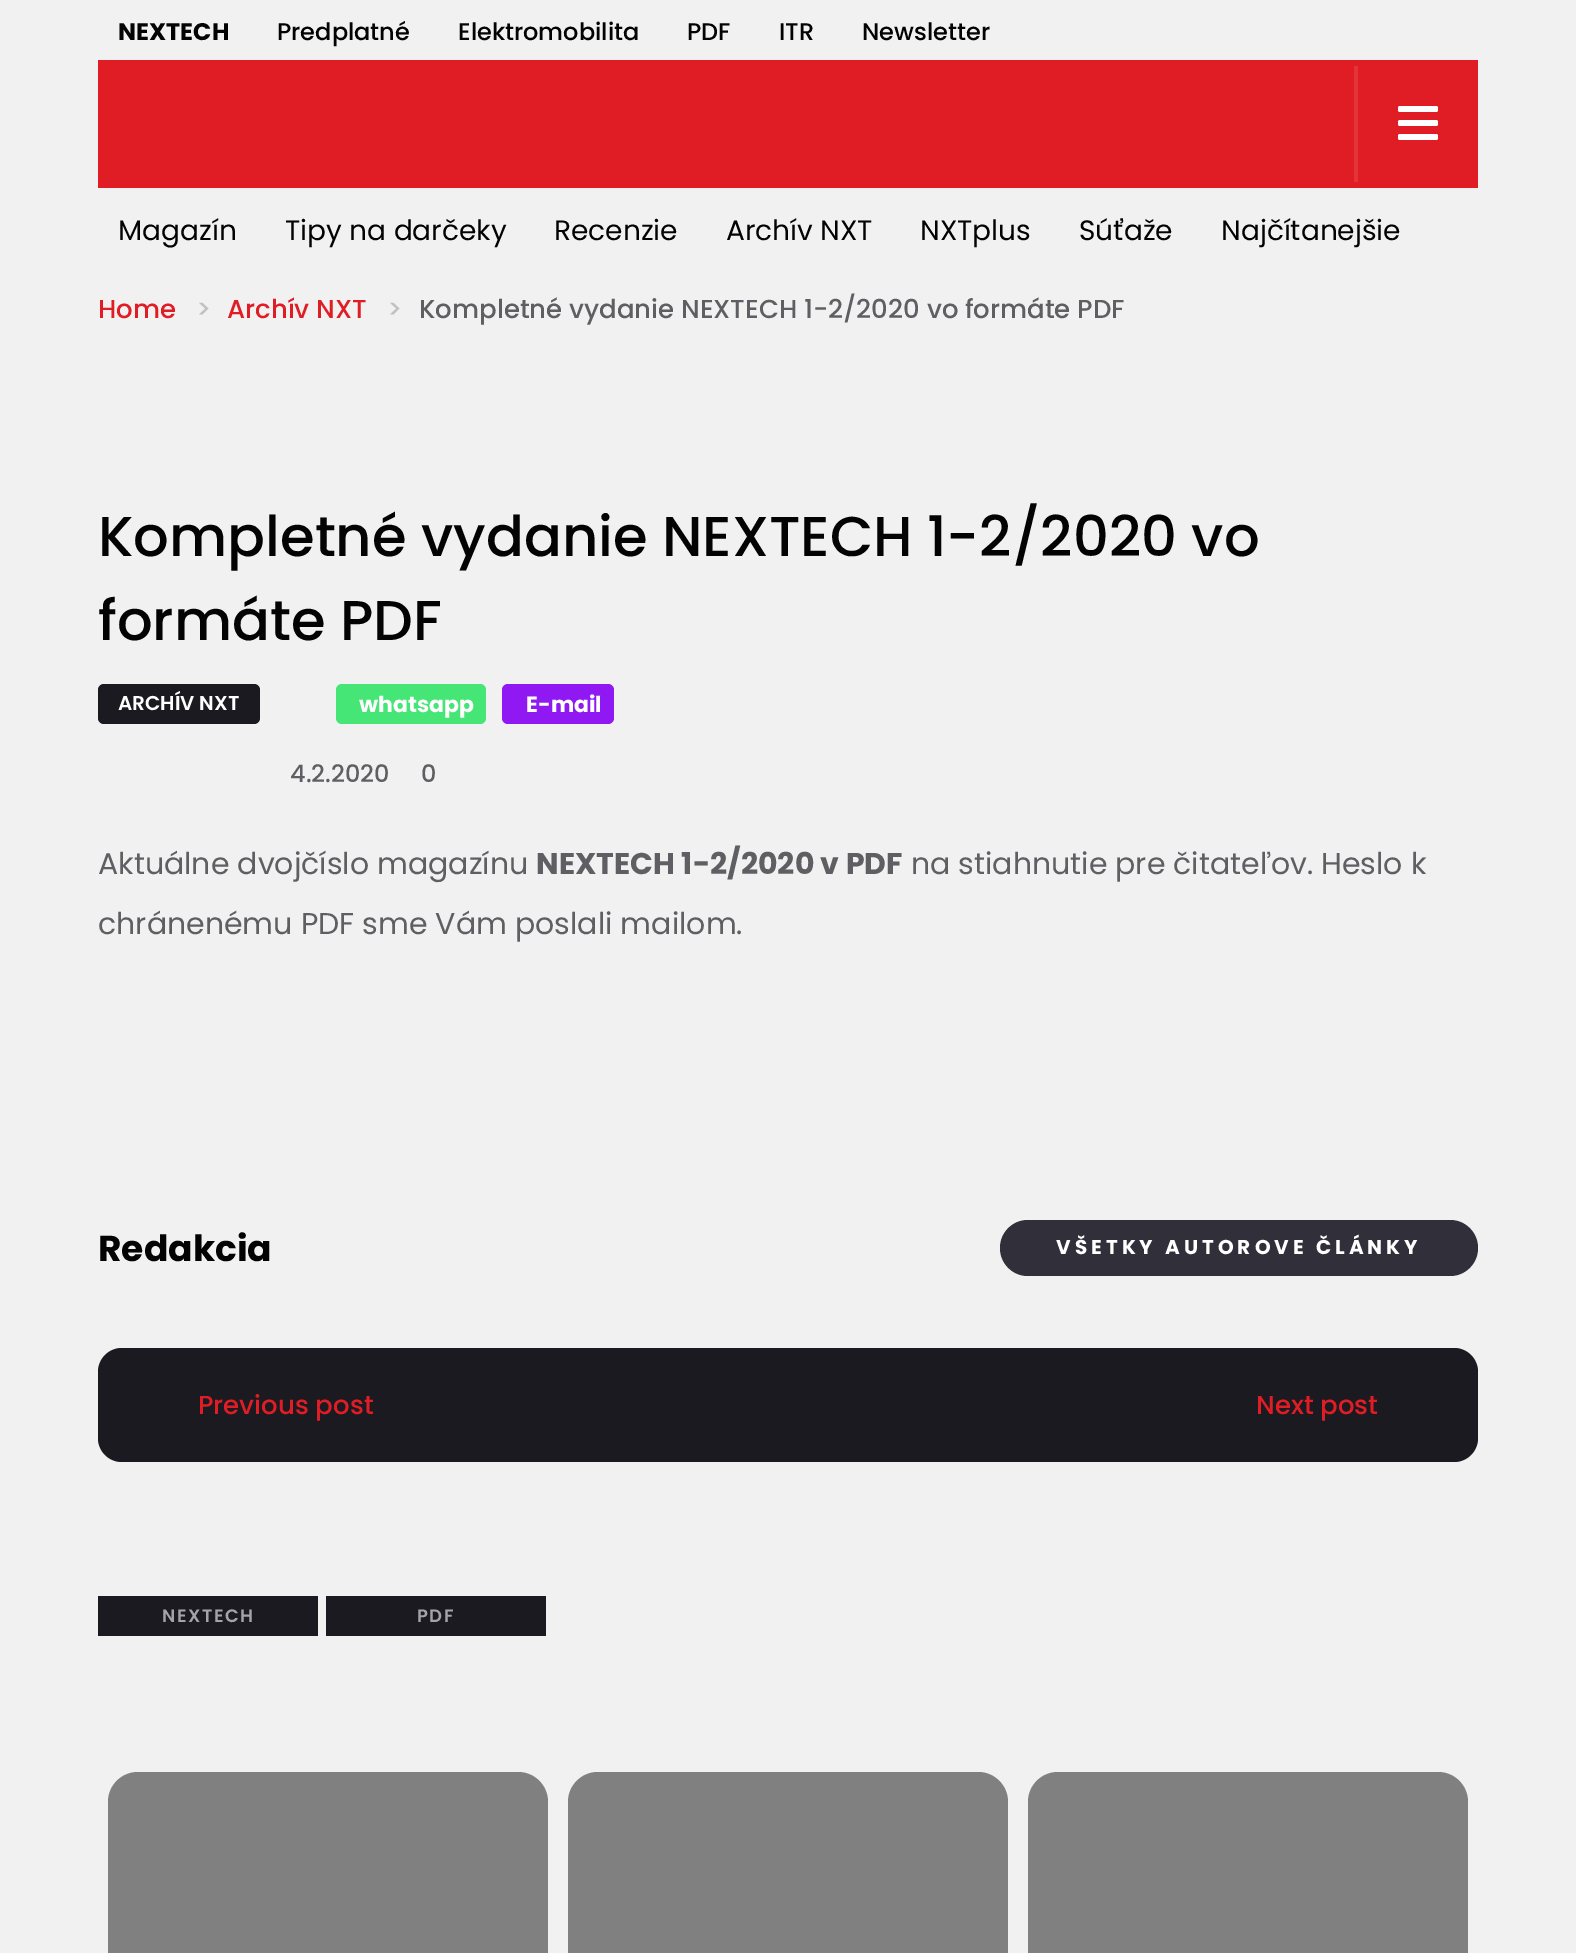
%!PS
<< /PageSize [1576 1953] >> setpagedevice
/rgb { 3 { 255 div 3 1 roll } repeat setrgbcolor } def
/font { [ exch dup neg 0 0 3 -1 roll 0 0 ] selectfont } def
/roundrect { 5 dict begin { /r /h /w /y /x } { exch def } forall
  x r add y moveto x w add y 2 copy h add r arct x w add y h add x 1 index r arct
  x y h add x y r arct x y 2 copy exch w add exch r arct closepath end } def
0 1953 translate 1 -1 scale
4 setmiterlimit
241 241 241 rgb
0 0 1576 1953 rectfill
224 29 36 rgb
98 60 1380 128 rectfill
227 52 58 rgb
1354 66 4 116 rectfill
255 255 255 rgb
1398 106 40 6 2 roundrect fill
1398 120 40 6 2 roundrect fill
1398 134 40 6 2 roundrect fill
27 26 33 rgb
98 684 162 40 6 roundrect fill
69 230 118 rgb
336 684 150 40 6 roundrect fill
144 24 242 rgb
502 684 112 40 6 roundrect fill
48 47 58 rgb
1000 1220 478 56 28 roundrect fill
27 26 33 rgb
98 1348 1380 114 24 roundrect fill
98 1596 220 40 rectfill
326 1596 220 40 rectfill
128 128 128 rgb
108 1772 440 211 30 roundrect fill
568 1772 440 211 30 roundrect fill
1028 1772 440 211 30 roundrect fill
/Poppins-Bold 24 font
3 3 3 rgb
118 40 moveto (NEXTECH) show
/Poppins-Medium 24 font
[
  [(Predplatné) 277 40]
  [(Elektromobilita) 458 40]
  [(PDF) 687 40]
  [(ITR) 779 40]
  [(Newsletter) 862 40]
] { aload pop moveto show } forall
/Poppins-Regular 28 font
[
  [(Magazín) 118 240]
  [(Tipy na darčeky) 285 240]
  [(Recenzie) 554 240]
  [(Archív NXT) 726 240]
  [(NXTplus) 920 240]
  [(Súťaže) 1079 240]
  [(Najčítanejšie) 1221 240]
] { aload pop moveto show } forall
/Poppins-Medium 26 font
224 29 36 rgb
98 318 moveto (Home) show
193 193 193 rgb
196 318 moveto (>) show
224 29 36 rgb
227 318 moveto (Archív NXT) show
193 193 193 rgb
387 318 moveto (>) show
94 94 99 rgb
419 318 moveto (Kompletné vydanie NEXTECH 1-2/2020 vo formáte PDF) show
/Poppins-Medium 56 font
3 3 3 rgb
98 556 moveto (Kompletné vydanie NEXTECH 1-2/2020 vo) show
98 640 moveto (formáte PDF) show
/Poppins-SemiBold 20 font
255 255 255 rgb
118 710 moveto (ARCHÍV NXT) show
/Poppins-Bold 22 font
359 712 moveto (whatsapp) show
526 712 moveto (E-mail) show
/Poppins-Medium 24 font
94 94 99 rgb
290 782 moveto (4.2.2020) show
421 782 moveto (0) show
/Poppins-Regular 30 font
98 874 moveto (Aktuálne dvojčíslo magazínu) show
/Poppins-Bold 30 font
536 874 moveto (NEXTECH 1-2/2020 v PDF) show
/Poppins-Regular 30 font
911 874 moveto (na stiahnutie pre čitateľov. Heslo k) show
98 934 moveto (chránenému PDF sme Vám poslali mailom.) show
/Poppins-Bold 36 font
3 3 3 rgb
98 1261 moveto (Redakcia) show
/Poppins-Bold 20 font
255 255 255 rgb
1056 1254 moveto 4 0 (VŠETKY AUTOROVE ČLÁNKY) ashow
/Poppins-Medium 26 font
224 29 36 rgb
198 1414 moveto (Previous post) show
1256 1414 moveto (Next post) show
/Poppins-SemiBold 18 font
164 163 166 rgb
162 1622 moveto 1.5 0 (NEXTECH) ashow
417 1622 moveto 1.5 0 (PDF) ashow
showpage
